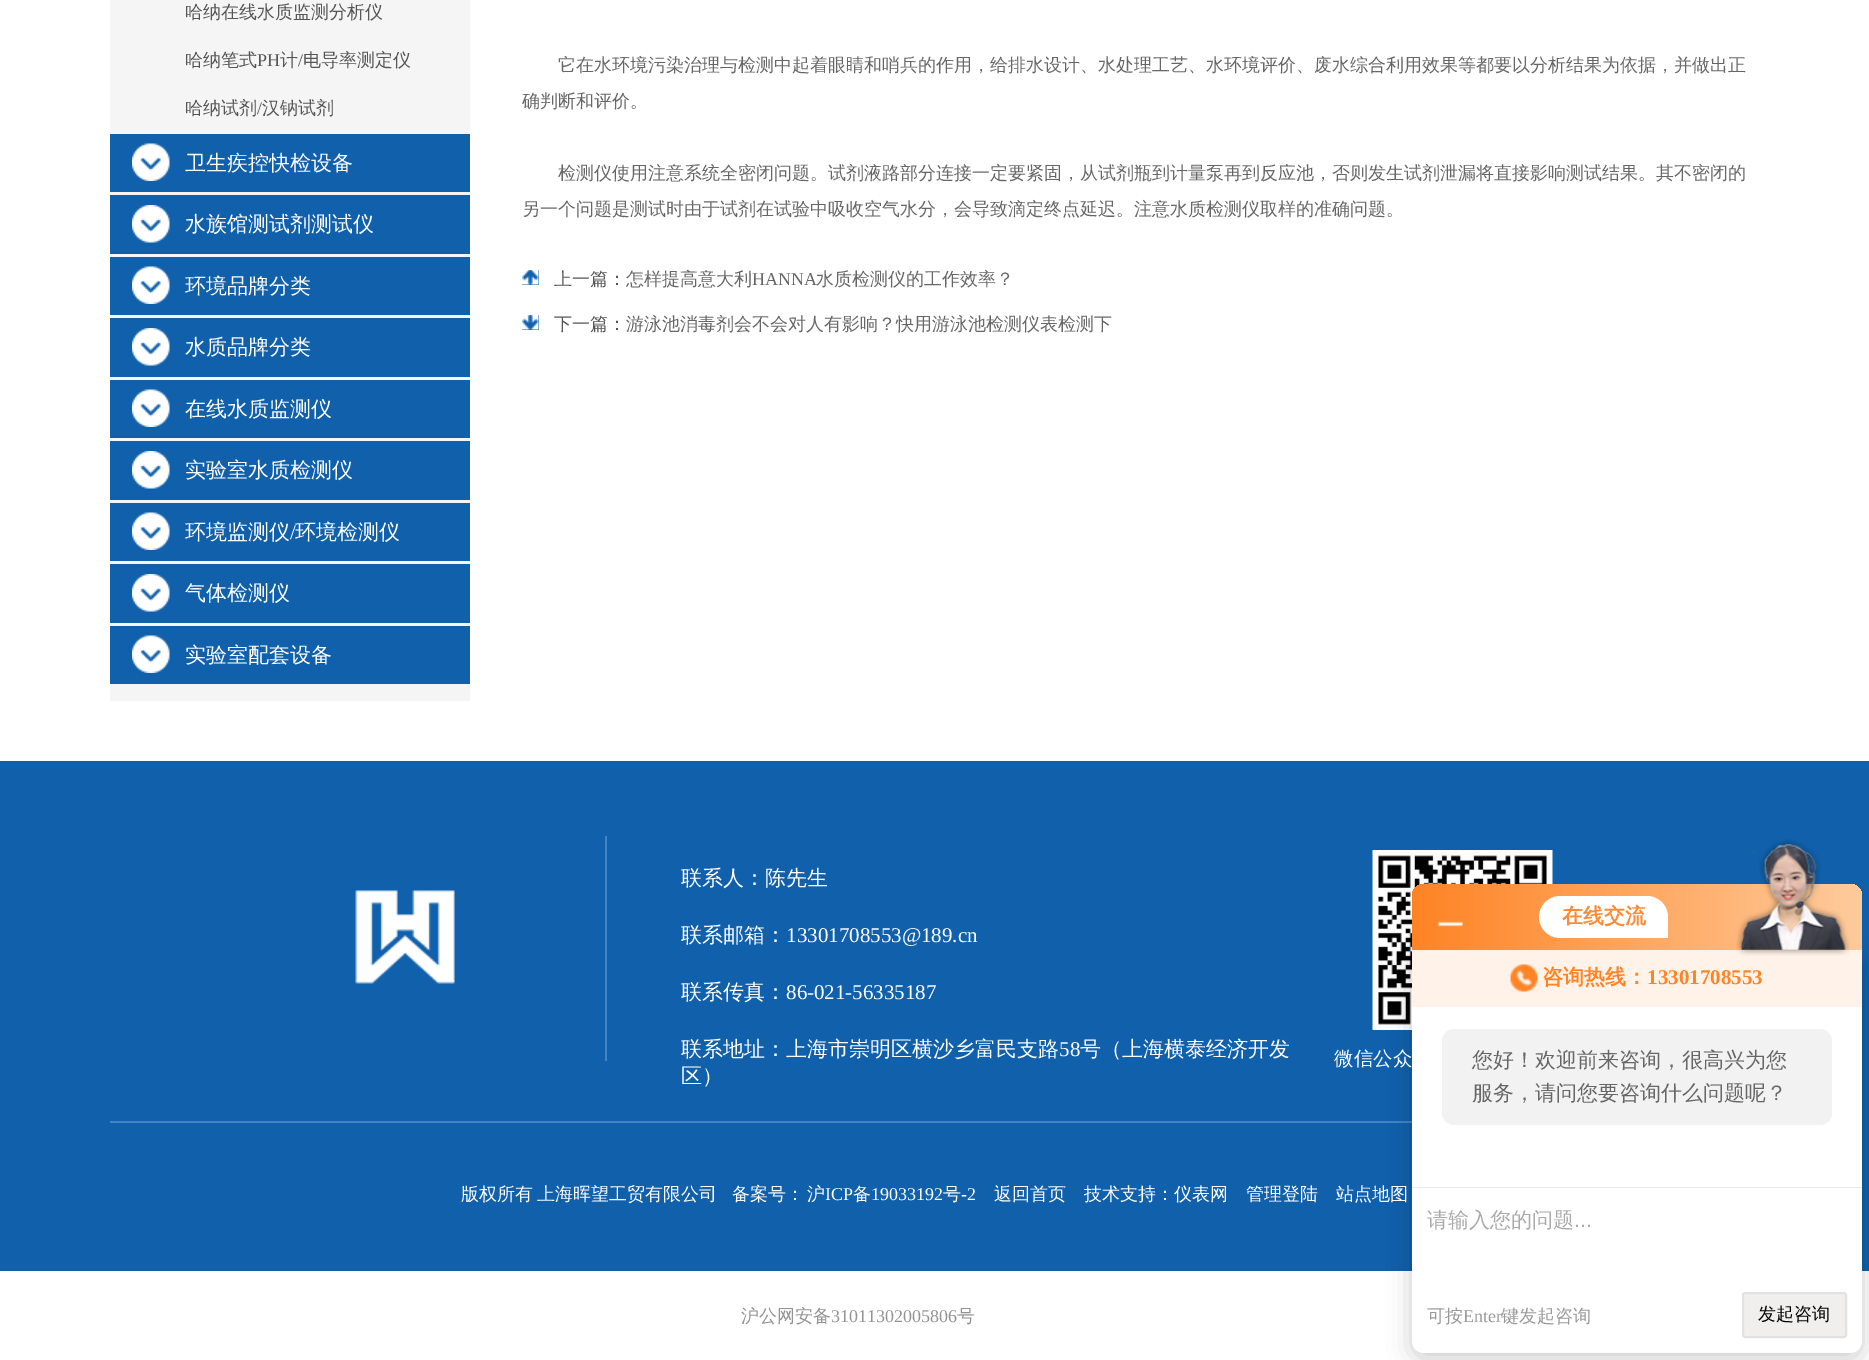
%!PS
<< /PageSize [1869 1360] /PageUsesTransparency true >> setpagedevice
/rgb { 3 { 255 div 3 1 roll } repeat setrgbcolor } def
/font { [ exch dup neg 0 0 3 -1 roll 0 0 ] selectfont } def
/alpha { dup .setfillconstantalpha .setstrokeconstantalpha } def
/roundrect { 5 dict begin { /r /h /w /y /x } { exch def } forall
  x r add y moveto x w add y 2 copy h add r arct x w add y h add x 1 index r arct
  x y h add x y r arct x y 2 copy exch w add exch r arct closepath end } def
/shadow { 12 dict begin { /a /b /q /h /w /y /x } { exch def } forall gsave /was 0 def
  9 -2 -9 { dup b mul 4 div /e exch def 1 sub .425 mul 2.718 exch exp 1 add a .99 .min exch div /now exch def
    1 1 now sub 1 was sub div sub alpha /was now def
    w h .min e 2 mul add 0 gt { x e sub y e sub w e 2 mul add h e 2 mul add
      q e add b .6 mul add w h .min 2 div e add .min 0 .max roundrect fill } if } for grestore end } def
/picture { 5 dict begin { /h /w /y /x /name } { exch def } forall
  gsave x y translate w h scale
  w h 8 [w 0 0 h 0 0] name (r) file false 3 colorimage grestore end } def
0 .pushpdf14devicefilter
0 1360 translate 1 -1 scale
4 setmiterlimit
255 255 255 rgb
0 0 1869 1360 rectfill
245 245 245 rgb
110 0 360 701 rectfill
16 96 171 rgb
110 134 360 58 rectfill
(img/1.rgb) 132 143 38 38 picture
110 195 360 59 rectfill
(img/2.rgb) 132 205 38 38 picture
110 257 360 58 rectfill
(img/1.rgb) 132 266 38 38 picture
110 318 360 59 rectfill
(img/2.rgb) 132 328 38 38 picture
110 380 360 58 rectfill
(img/1.rgb) 132 389 38 38 picture
110 441 360 59 rectfill
(img/2.rgb) 132 451 38 38 picture
110 503 360 58 rectfill
(img/1.rgb) 132 512 38 38 picture
110 564 360 59 rectfill
(img/2.rgb) 132 574 38 38 picture
110 626 360 58 rectfill
(img/1.rgb) 132 635 38 38 picture
522 270 17 15 rectfill
(img/3.rgb) 522 270 17 15 picture
522 315 17 15 rectfill
(img/4.rgb) 522 315 17 15 picture
0 761 1869 510 rectfill
67 133 195 rgb
605 836 2 225 rectfill
(img/5.rgb) 355 890 100 94 picture
(img/6.rgb) 1372 850 181 180 picture
110 1121 1302 2 rectfill
0 0 0 rgb
1412 956 450 403 12 12 0.2 shadow
gsave 1424 884 moveto 1850 884 lineto 1856.5 884 1862 889.5 1862 896 curveto 1862 950 lineto 1412 950 lineto 1412 896 lineto 1412 889.5 1417.5 884 1424 884 curveto closepath clip newpath
<< /ShadingType 2 /ColorSpace /DeviceRGB /Coords [1412 917 1862 917] /Extend [true true] /Function << /FunctionType 2 /Domain [0 1] /C0 [1 0.514 0.141] /C1 [0.996 0.796 0.612] /N 1 >> >> shfill grestore
(img/7.rgb) 1438 921 25 6 picture
255 255 255 rgb
1560 896 moveto 1647 896 lineto 1658.5 896 1668 905.5 1668 917 curveto 1668 938 lineto 1560 938 lineto 1548.5 938 1539 928.5 1539 917 curveto 1539 905.5 1548.5 896 1560 896 curveto closepath fill
1412 950 moveto 1862 950 lineto 1862 1341 lineto 1862 1347.5 1856.5 1353 1850 1353 curveto 1424 1353 lineto 1417.5 1353 1412 1347.5 1412 1341 curveto closepath fill
255 243 233 rgb
1412 950 450 57 rectfill
(img/8.rgb) 1736 839 114 117 picture
(img/9.rgb) 1510 964 28 28 picture
242 242 242 rgb
1442 1029 390 96 12 roundrect fill
234 234 234 rgb
1412 1187 450 1 rectfill
240 239 237 rgb
1743 1293 103 44 2 roundrect gsave fill grestore
226 226 226 rgb
2 setlinewidth
stroke
/WenQuanYiZenHei-Medium 18 font
85 85 85 rgb
185 18 moveto (哈纳在线水质监测分析仪) show
185 66 moveto (哈纳笔式) show
/LiberationSerif-Regular 18 font
257 66 moveto (PH) show
/WenQuanYiZenHei-Medium 18 font
280 66 moveto (计) show
/LiberationSerif-Regular 18 font
298 66 moveto (/) show
/WenQuanYiZenHei-Medium 18 font
303 66 moveto (电导率测定仪) show
185 114 moveto (哈纳试剂) show
/LiberationSerif-Regular 18 font
257 114 moveto (/) show
/WenQuanYiZenHei-Medium 18 font
262 114 moveto (汉钠试剂) show
/WenQuanYiZenHei-Medium 21 font
255 255 255 rgb
[
  [(卫生疾控快检设备) 185 170]
  [(水族馆测试剂测试仪) 185 231]
  [(环境品牌分类) 185 293]
  [(水质品牌分类) 185 354]
  [(在线水质监测仪) 185 416]
  [(实验室水质检测仪) 185 477]
  [(环境监测仪) 185 539]
] { aload pop moveto show } forall
/LiberationSerif-Regular 21 font
290 539 moveto (/) show
/WenQuanYiZenHei-Medium 21 font
[
  [(环境检测仪) 295 539]
  [(气体检测仪) 185 600]
  [(实验室配套设备) 185 662]
] { aload pop moveto show } forall
/WenQuanYiZenHei-Medium 18 font
102 102 102 rgb
[
  [(它在水环境污染治理与检测中起着眼睛和哨兵的作用，给排水设计、水处理工艺、水环境评价、废水综合利用效果等都要以分析结果为依据，并做出正) 558 71]
  [(确判断和评价。) 522 107]
  [(检测仪使用注意系统全密闭问题。试剂液路部分连接一定要紧固，从试剂瓶到计量泵再到反应池，否则发生试剂泄漏将直接影响测试结果。其不密闭的) 558 179]
  [(另一个问题是测试时由于试剂在试验中吸收空气水分，会导致滴定终点延迟。注意水质检测仪取样的准确问题。) 522 215]
] { aload pop moveto show } forall
85 85 85 rgb
554 285 moveto (上一篇：) show
102 102 102 rgb
626 285 moveto (怎样提高意大利) show
/LiberationSerif-Regular 18 font
752 285 moveto (HANNA) show
/WenQuanYiZenHei-Medium 18 font
816 285 moveto (水质检测仪的工作效率？) show
85 85 85 rgb
554 330 moveto (下一篇：) show
102 102 102 rgb
626 330 moveto (游泳池消毒剂会不会对人有影响？快用游泳池检测仪表检测下) show
/WenQuanYiZenHei-Medium 21 font
255 255 255 rgb
681 885 moveto (联系人：陈先生) show
681 942 moveto (联系邮箱：) show
/LiberationSerif-Regular 21 font
786 942 moveto (13301708553@189.cn) show
/WenQuanYiZenHei-Medium 21 font
681 999 moveto (联系传真：) show
/LiberationSerif-Regular 21 font
786 999 moveto (86-021-56335187) show
/WenQuanYiZenHei-Medium 21 font
681 1056 moveto (联系地址：上海市崇明区横沙乡富民支路) show
/LiberationSerif-Regular 21 font
1059 1056 moveto (58) show
/WenQuanYiZenHei-Medium 21 font
1080 1056 moveto (号（上海横泰经济开发) show
681 1083 moveto (区）) show
/WenQuanYiZenHei-Medium 19.5 font
1334 1065 moveto (微信公众) show
/WenQuanYiZenHei-Medium 18 font
461 1200 moveto -1 0 32 (版权所有 上海晖望工贸有限公司) widthshow
732 1200 moveto (备案号：) show
807 1200 moveto (沪) show
/LiberationSerif-Regular 18 font
825 1200 moveto (ICP) show
/WenQuanYiZenHei-Medium 18 font
853 1200 moveto (备) show
/LiberationSerif-Regular 18 font
871 1200 moveto (19033192) show
/WenQuanYiZenHei-Medium 18 font
943 1200 moveto (号) show
/LiberationSerif-Regular 18 font
961 1200 moveto (-2) show
/WenQuanYiZenHei-Medium 18 font
[
  [(返回首页) 994 1200]
  [(技术支持：仪表网) 1084 1200]
  [(管理登陆) 1246 1200]
  [(站点地图) 1336 1200]
] { aload pop moveto show } forall
/WenQuanYiZenHei-Bold 21 font
251 139 54 rgb
1562 923 moveto (在线交流) show
255 132 38 rgb
1542 984 moveto (咨询热线：) show
/LiberationSerif-Bold 21 font
1647 984 moveto (13301708553) show
/WenQuanYiZenHei-Medium 21 font
102 102 102 rgb
1472 1067 moveto (您好！欢迎前来咨询，很高兴为您) show
1472 1100 moveto (服务，请问您要咨询什么问题呢？) show
170 170 170 rgb
1427 1227 moveto (请输入您的问题) show
/LiberationSans-Regular 21 font
1574 1227 moveto (...) show
/WenQuanYiZenHei-Medium 18 font
153 153 153 rgb
1427 1322 moveto (可按) show
/LiberationSerif-Regular 18 font
1463 1322 moveto (Enter) show
/WenQuanYiZenHei-Medium 18 font
1501 1322 moveto (键发起咨询) show
0 0 0 rgb
1758 1320 moveto (发起咨询) show
147 147 147 rgb
741 1322 moveto (沪公网安备) show
/LiberationSerif-Regular 18 font
831 1322 moveto (31011302005806) show
/WenQuanYiZenHei-Medium 18 font
957 1322 moveto (号) show
.poppdf14devicefilter showpage
